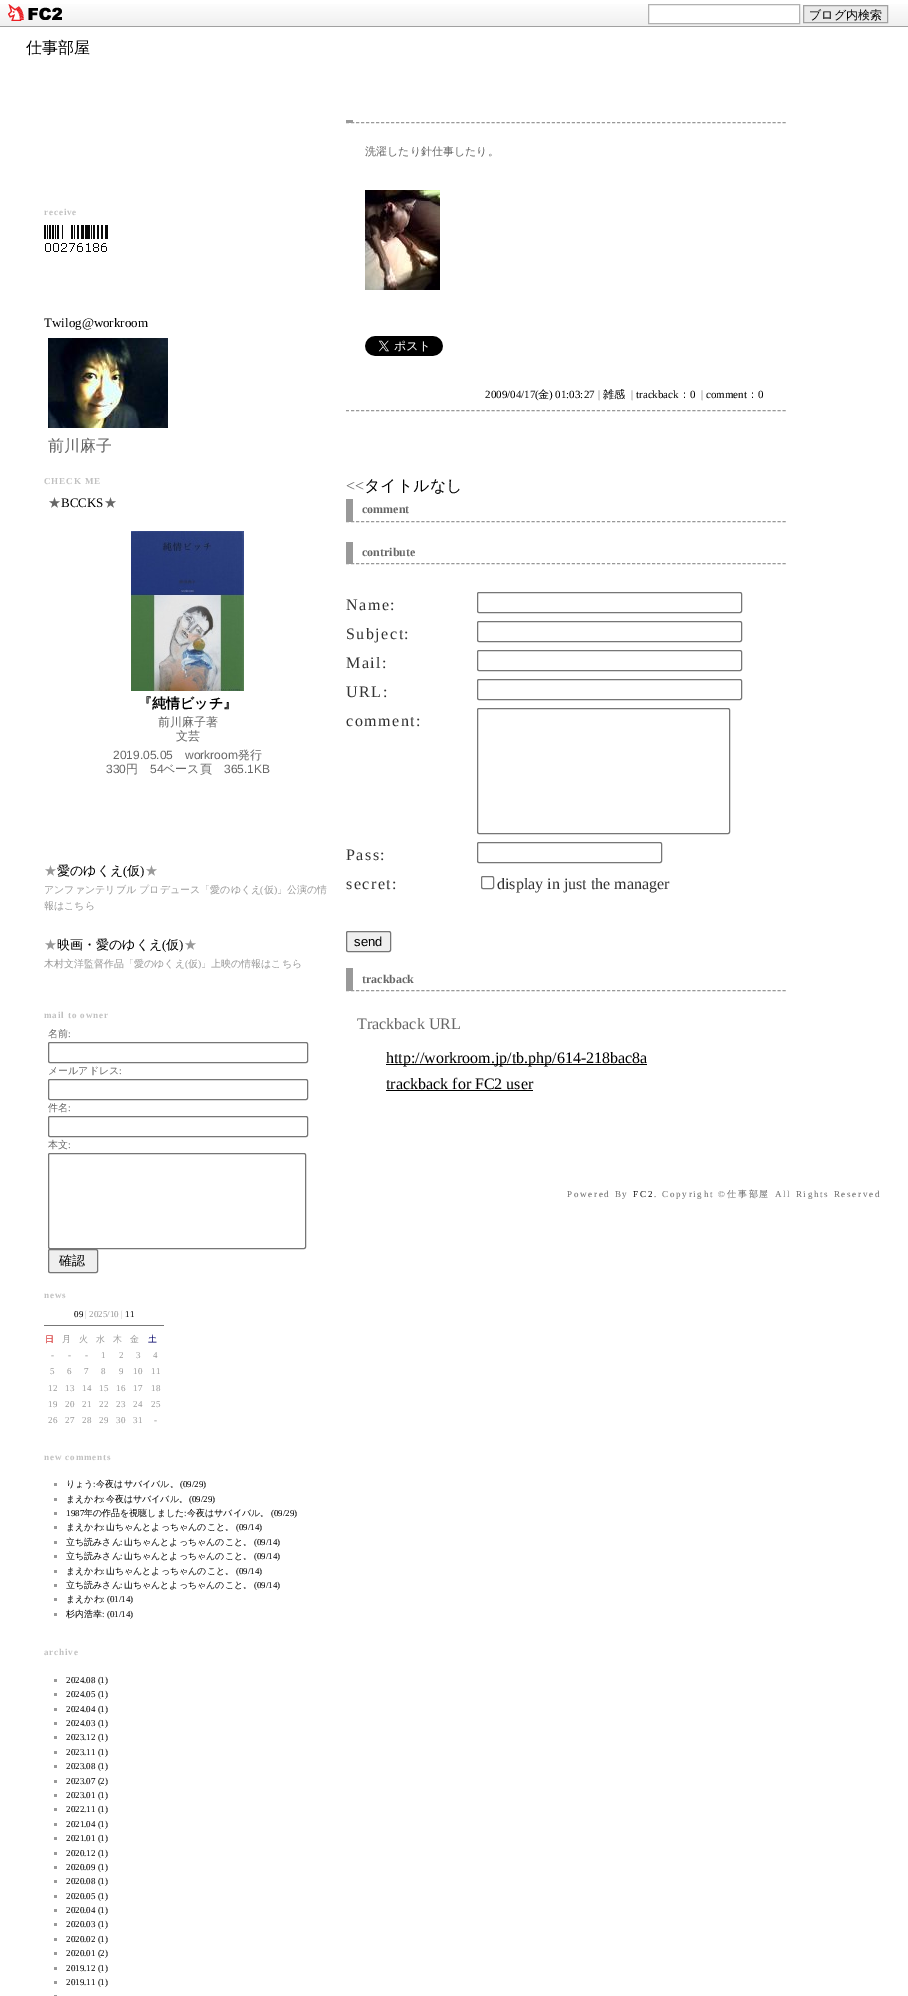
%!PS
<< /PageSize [908 1996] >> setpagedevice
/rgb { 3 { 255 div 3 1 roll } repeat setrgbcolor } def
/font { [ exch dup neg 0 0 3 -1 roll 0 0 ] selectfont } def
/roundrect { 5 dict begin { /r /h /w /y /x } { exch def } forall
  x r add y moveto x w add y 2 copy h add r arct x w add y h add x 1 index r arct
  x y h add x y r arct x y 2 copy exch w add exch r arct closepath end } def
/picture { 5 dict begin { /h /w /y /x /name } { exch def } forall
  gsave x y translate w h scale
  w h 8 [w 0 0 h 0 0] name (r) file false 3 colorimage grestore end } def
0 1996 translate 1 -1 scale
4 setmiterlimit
255 255 255 rgb
0 0 908 1996 rectfill
gsave 0 4 moveto 908 4 lineto 908 26 lineto 0 26 lineto closepath clip newpath
<< /ShadingType 2 /ColorSpace /DeviceRGB /Coords [0 0 0 26] /Extend [true true] /Function << /FunctionType 2 /Domain [0 1] /C0 [1 1 1] /C1 [0.941 0.941 0.941] /N 1 >> >> shfill grestore
161 161 161 rgb
0 26 908 1 rectfill
(img/1.rgb) 8 4 54 17 picture
255 255 255 rgb
648.5 4.5 moveto 799.5 4.5 lineto 799.5 23.5 lineto 648.5 23.5 lineto closepath gsave fill grestore
178 178 178 rgb
stroke
234 234 234 rgb
803.5 5.5 moveto 887.5 5.5 lineto 887.5 22.5 lineto 803.5 22.5 lineto closepath gsave fill grestore
161 161 161 rgb
stroke
(img/2.rgb) 44 225 7 27 picture
(img/2.rgb) 52 225 7 27 picture
(img/3.rgb) 61 225 6 27 picture
(img/4.rgb) 69 225 6 27 picture
(img/5.rgb) 77 225 7 27 picture
(img/6.rgb) 85 225 7 27 picture
(img/7.rgb) 93 225 6 27 picture
(img/5.rgb) 101 225 7 27 picture
(img/8.rgb) 48 338 120 90 picture
(img/9.rgb) 131 531 113 160 picture
118 118 118 rgb
48.5 1042.5 259 20 1.5 roundrect stroke
48.5 1079.5 259 20 1.5 roundrect stroke
48.5 1116.5 259 20 1.5 roundrect stroke
48.5 1153.5 257 95 1.5 roundrect stroke
239 239 239 rgb
48.5 1249.5 49 23 1.5 roundrect gsave fill grestore
118 118 118 rgb
stroke
[
  [44 1325 120 1 119 119 119]
  [54 1483 3 3 153 153 153]
  [54 1498 3 3 153 153 153]
  [54 1512 3 3 153 153 153]
  [54 1526 3 3 153 153 153]
  [54 1541 3 3 153 153 153]
  [54 1555 3 3 153 153 153]
  [54 1570 3 3 153 153 153]
  [54 1584 3 3 153 153 153]
  [54 1598 3 3 153 153 153]
  [54 1613 3 3 153 153 153]
  [54 1679 3 3 153 153 153]
  [54 1693 3 3 153 153 153]
  [54 1708 3 3 153 153 153]
  [54 1722 3 3 153 153 153]
  [54 1736 3 3 153 153 153]
  [54 1751 3 3 153 153 153]
  [54 1765 3 3 153 153 153]
  [54 1780 3 3 153 153 153]
  [54 1794 3 3 153 153 153]
  [54 1808 3 3 153 153 153]
  [54 1823 3 3 153 153 153]
  [54 1837 3 3 153 153 153]
  [54 1852 3 3 153 153 153]
  [54 1866 3 3 153 153 153]
  [54 1880 3 3 153 153 153]
  [54 1895 3 3 153 153 153]
  [54 1909 3 3 153 153 153]
  [54 1923 3 3 153 153 153]
  [54 1938 3 3 153 153 153]
  [54 1952 3 3 153 153 153]
  [54 1967 3 3 153 153 153]
  [54 1981 3 3 153 153 153]
  [54 1995 3 1 153 153 153]
] { aload pop rgb rectfill } forall
[3 2.02] 0 setdash
346 122.5 moveto 786 122.5 lineto stroke
346 120 7 3 rectfill
346 410.5 moveto 786 410.5 lineto stroke
(img/10.rgb) 365 190 75 100 picture
(img/11.rgb) 365 336 78 20 picture
346 521.5 moveto 786 521.5 lineto stroke
346 499 7 23 rectfill
346 563.5 moveto 786 563.5 lineto stroke
346 542 7 22 rectfill
118 118 118 rgb
[] 0 setdash
477.5 592.5 264 20 1.5 roundrect stroke
477.5 621.5 264 20 1.5 roundrect stroke
477.5 650.5 264 20 1.5 roundrect stroke
477.5 679.5 264 20 1.5 roundrect stroke
477.5 708.5 252 125 1.5 roundrect stroke
477.5 842.5 184 20 1.5 roundrect stroke
481.5 876.5 12 12 1.5 roundrect stroke
239 239 239 rgb
346.5 931.5 44 20 1.5 roundrect gsave fill grestore
118 118 118 rgb
stroke
153 153 153 rgb
[3 2.02] 0 setdash
346 990.5 moveto 786 990.5 lineto stroke
[
  [346 968 7 23 153 153 153]
  [386 1064 261 1 0 0 0]
  [386 1090 147 1 0 0 0]
] { aload pop rgb rectfill } forall
/WenQuanYiZenHei-Medium 12 font
809 19 moveto (ブログ内検索) show
/WenQuanYiZenHei-Medium 16 font
26 53 moveto (仕事部屋) show
/LiberationSerif-Bold 9 font
192 192 192 rgb
44 215 moveto 0.9 0 (receive) ashow
/LiberationSerif-Regular 13 font
0 0 0 rgb
44 327 moveto (Twilog@workroom) show
/WenQuanYiZenHei-Medium 16 font
102 102 102 rgb
48 451 moveto (前川麻子) show
/LiberationSerif-Bold 9 font
192 192 192 rgb
44 484 moveto 0.9 0 (CHECK ME) ashow
/WenQuanYiZenHei-Medium 13 font
102 102 102 rgb
48 507 moveto (★) show
/LiberationSerif-Regular 13 font
0 0 0 rgb
61 507 moveto (BCCKS) show
/WenQuanYiZenHei-Medium 13 font
102 102 102 rgb
104 507 moveto (★) show
/WenQuanYiZenHei-Bold 14 font
0 0 0 rgb
138 708 moveto (『純情ビッチ』) show
/WenQuanYiZenHei-Medium 12 font
102 102 102 rgb
158 726 moveto (前川麻子著) show
176 740 moveto (文芸) show
/LiberationSans-Regular 12 font
113 759 moveto (2019.05.05) show
185 759 moveto (workroom) show
/WenQuanYiZenHei-Medium 12 font
238 759 moveto (発行) show
/LiberationSans-Regular 12 font
106 773 moveto (330) show
/WenQuanYiZenHei-Medium 12 font
126 773 moveto (円) show
/LiberationSans-Regular 12 font
150 773 moveto (54) show
/WenQuanYiZenHei-Medium 12 font
163 773 moveto (ベース頁) show
/LiberationSans-Regular 12 font
224 773 moveto (365.1KB) show
/WenQuanYiZenHei-Medium 13 font
153 153 153 rgb
44 875 moveto (★) show
0 0 0 rgb
57 875 moveto (愛のゆくえ) show
/LiberationSerif-Regular 13 font
123 875 moveto (\() show
/WenQuanYiZenHei-Medium 13 font
127 875 moveto (仮) show
/LiberationSerif-Regular 13 font
140 875 moveto (\)) show
/WenQuanYiZenHei-Medium 13 font
153 153 153 rgb
145 875 moveto (★) show
/WenQuanYiZenHei-Medium 10 font
44 893 moveto (アンファンテリブル プロデュース「愛のゆくえ) show
/LiberationSerif-Regular 10 font
260 893 moveto (\() show
/WenQuanYiZenHei-Medium 10 font
264 893 moveto (仮) show
/LiberationSerif-Regular 10 font
274 893 moveto (\)) show
/WenQuanYiZenHei-Medium 10 font
277 893 moveto (」公演の情) show
44 909 moveto (報はこちら) show
/WenQuanYiZenHei-Medium 13 font
44 949 moveto (★) show
0 0 0 rgb
57 949 moveto (映画・愛のゆくえ) show
/LiberationSerif-Regular 13 font
162 949 moveto (\() show
/WenQuanYiZenHei-Medium 13 font
166 949 moveto (仮) show
/LiberationSerif-Regular 13 font
179 949 moveto (\)) show
/WenQuanYiZenHei-Medium 13 font
153 153 153 rgb
184 949 moveto (★) show
/WenQuanYiZenHei-Medium 10 font
44 967 moveto (木村文洋監督作品「愛のゆくえ) show
/LiberationSerif-Regular 10 font
185 967 moveto (\() show
/WenQuanYiZenHei-Medium 10 font
188 967 moveto (仮) show
/LiberationSerif-Regular 10 font
198 967 moveto (\)) show
/WenQuanYiZenHei-Medium 10 font
201 967 moveto (」上映の情報はこちら) show
/LiberationSerif-Bold 9 font
192 192 192 rgb
44 1018 moveto 0.9 0 (mail to owner) ashow
/WenQuanYiZenHei-Medium 10 font
102 102 102 rgb
48 1037 moveto (名前) show
/LiberationSerif-Regular 10 font
68 1037 moveto (:) show
/WenQuanYiZenHei-Medium 10 font
48 1074 moveto (メールアドレス) show
/LiberationSerif-Regular 10 font
119 1074 moveto (:) show
/WenQuanYiZenHei-Medium 10 font
48 1111 moveto (件名) show
/LiberationSerif-Regular 10 font
68 1111 moveto (:) show
/WenQuanYiZenHei-Medium 10 font
48 1148 moveto (本文) show
/LiberationSerif-Regular 10 font
68 1148 moveto (:) show
/WenQuanYiZenHei-Medium 13 font
0 0 0 rgb
59 1265 moveto (確認) show
/LiberationSerif-Bold 9 font
192 192 192 rgb
44 1298 moveto 0.9 0 (news) ashow
/LiberationSerif-Regular 9 font
0 0 0 rgb
74 1317 moveto (09) show
153 153 153 rgb
85 1317 moveto (| 2025/10 |) show
0 0 0 rgb
125 1317 moveto (11) show
/WenQuanYiZenHei-Medium 9 font
204 0 0 rgb
45 1342 moveto (日) show
153 153 153 rgb
[
  [(月) 62 1342]
  [(火) 79 1342]
  [(水) 96 1342]
  [(木) 113 1342]
  [(金) 130 1342]
] { aload pop moveto show } forall
0 0 102 rgb
148 1342 moveto (土) show
/LiberationSerif-Regular 9 font
153 153 153 rgb
[
  [(-) 51 1358]
  [(-) 68 1358]
  [(-) 85 1358]
  [(1) 101 1358]
  [(2) 119 1358]
  [(3) 136 1358]
  [(4) 153 1358]
  [(5) 50 1374]
  [(6) 67 1374]
  [(7) 84 1374]
  [(8) 101 1374]
  [(9) 119 1374]
  [(10) 133 1374]
  [(11) 151 1374]
  [(12) 48 1391]
  [(13) 65 1391]
  [(14) 82 1391]
  [(15) 99 1391]
  [(16) 116 1391]
  [(17) 133 1391]
  [(18) 151 1391]
  [(19) 48 1407]
  [(20) 65 1407]
  [(21) 82 1407]
  [(22) 99 1407]
  [(23) 116 1407]
  [(24) 133 1407]
  [(25) 151 1407]
  [(26) 48 1423]
  [(27) 65 1423]
  [(28) 82 1423]
  [(29) 99 1423]
  [(30) 116 1423]
  [(31) 133 1423]
  [(-) 154 1423]
] { aload pop moveto show } forall
/LiberationSerif-Bold 9 font
192 192 192 rgb
44 1460 moveto 0.9 0 (new comments) ashow
/WenQuanYiZenHei-Medium 9 font
0 0 0 rgb
66 1487 moveto (りょう 今夜はサバイバル。) show
/LiberationSerif-Regular 9 font
180 1487 moveto (\(09/29\)) show
93 1487 moveto (:) show
/WenQuanYiZenHei-Medium 9 font
66 1502 moveto (まえかわ 今夜はサバイバル。) show
/LiberationSerif-Regular 9 font
[
  [(\(09/29\)) 189 1502]
  [(:) 102 1502]
  [(1987) 66 1516]
] { aload pop moveto show } forall
/WenQuanYiZenHei-Medium 9 font
84 1516 moveto (年の作品を視聴しました 今夜はサバイバル。) show
/LiberationSerif-Regular 9 font
271 1516 moveto (\(09/29\)) show
184 1516 moveto (:) show
/WenQuanYiZenHei-Medium 9 font
66 1530 moveto (まえかわ 山ちゃんとよっちゃんのこと。) show
/LiberationSerif-Regular 9 font
236 1530 moveto (\(09/14\)) show
102 1530 moveto (:) show
/WenQuanYiZenHei-Medium 9 font
66 1545 moveto (立ち読みさん 山ちゃんとよっちゃんのこと。) show
/LiberationSerif-Regular 9 font
254 1545 moveto (\(09/14\)) show
120 1545 moveto (:) show
/WenQuanYiZenHei-Medium 9 font
66 1559 moveto (立ち読みさん 山ちゃんとよっちゃんのこと。) show
/LiberationSerif-Regular 9 font
254 1559 moveto (\(09/14\)) show
120 1559 moveto (:) show
/WenQuanYiZenHei-Medium 9 font
66 1574 moveto (まえかわ 山ちゃんとよっちゃんのこと。) show
/LiberationSerif-Regular 9 font
236 1574 moveto (\(09/14\)) show
102 1574 moveto (:) show
/WenQuanYiZenHei-Medium 9 font
66 1588 moveto (立ち読みさん 山ちゃんとよっちゃんのこと。) show
/LiberationSerif-Regular 9 font
254 1588 moveto (\(09/14\)) show
120 1588 moveto (:) show
/WenQuanYiZenHei-Medium 9 font
66 1602 moveto (まえかわ) show
/LiberationSerif-Regular 9 font
102 1602 moveto (: \(01/14\)) show
/WenQuanYiZenHei-Medium 9 font
66 1617 moveto (杉内浩幸) show
/LiberationSerif-Regular 9 font
102 1617 moveto (: \(01/14\)) show
/LiberationSerif-Bold 9 font
192 192 192 rgb
44 1655 moveto 0.9 0 (archive) ashow
/LiberationSerif-Regular 9 font
0 0 0 rgb
[
  [(2024.08 \(1\)) 66 1683]
  [(2024.05 \(1\)) 66 1697]
  [(2024.04 \(1\)) 66 1712]
  [(2024.03 \(1\)) 66 1726]
  [(2023.12 \(1\)) 66 1740]
  [(2023.11 \(1\)) 66 1755]
  [(2023.08 \(1\)) 66 1769]
  [(2023.07 \(2\)) 66 1784]
  [(2023.01 \(1\)) 66 1798]
  [(2022.11 \(1\)) 66 1812]
  [(2021.04 \(1\)) 66 1827]
  [(2021.01 \(1\)) 66 1841]
  [(2020.12 \(1\)) 66 1856]
  [(2020.09 \(1\)) 66 1870]
  [(2020.08 \(1\)) 66 1884]
  [(2020.05 \(1\)) 66 1899]
  [(2020.04 \(1\)) 66 1913]
  [(2020.03 \(1\)) 66 1927]
  [(2020.02 \(1\)) 66 1942]
  [(2020.01 \(2\)) 66 1956]
  [(2019.12 \(1\)) 66 1971]
  [(2019.11 \(1\)) 66 1985]
] { aload pop moveto show } forall
/WenQuanYiZenHei-Medium 11 font
102 102 102 rgb
365 155 moveto (洗濯したり針仕事したり。) show
/LiberationSerif-Regular 11 font
0 0 0 rgb
485 398 moveto (2009/04/17\() show
/WenQuanYiZenHei-Medium 11 font
538 398 moveto (金) show
/LiberationSerif-Regular 11 font
549 398 moveto (\) 01:03:27) show
102 102 102 rgb
598 398 moveto (|) show
/WenQuanYiZenHei-Medium 11 font
0 0 0 rgb
603 398 moveto (雑感) show
/LiberationSerif-Regular 11 font
102 102 102 rgb
631 398 moveto (|) show
0 0 0 rgb
636 398 moveto (trackback) show
/WenQuanYiZenHei-Medium 11 font
679 398 moveto (：) show
/LiberationSerif-Regular 11 font
690 398 moveto (0) show
102 102 102 rgb
701 398 moveto (|) show
0 0 0 rgb
706 398 moveto (comment) show
/WenQuanYiZenHei-Medium 11 font
747 398 moveto (：) show
/LiberationSerif-Regular 11 font
758 398 moveto (0) show
/LiberationSerif-Regular 16 font
102 102 102 rgb
346 491 moveto (<<) show
/WenQuanYiZenHei-Medium 16 font
0 0 0 rgb
364 491 moveto (タイトルなし) show
/LiberationSerif-Bold 12 font
102 102 102 rgb
362 513 moveto (comment) show
362 556 moveto (contribute) show
/LiberationSerif-Regular 16 font
51 51 51 rgb
346 610 moveto 1.5 0 (Name:) ashow
346 639 moveto 1.5 0 (Subject:) ashow
346 668 moveto 1.5 0 (Mail:) ashow
346 697 moveto 1.5 0 (URL:) ashow
346 726 moveto 1.5 0 (comment:) ashow
346 860 moveto 1.5 0 (Pass:) ashow
346 889 moveto 1.5 0 (secret:) ashow
497 889 moveto (display in just the manager) show
/LiberationSans-Regular 13 font
0 0 0 rgb
354 946 moveto (send) show
/LiberationSerif-Bold 12 font
102 102 102 rgb
362 983 moveto (trackback) show
/LiberationSerif-Regular 16 font
357 1029 moveto (Trackback URL) show
0 0 0 rgb
386 1063 moveto (http://workroom.jp/tb.php/614-218bac8a) show
386 1089 moveto (trackback for FC2 user) show
/LiberationSerif-Regular 9 font
102 102 102 rgb
567 1197 moveto 1.75 0 (Powered By) ashow
0 0 0 rgb
633 1197 moveto 1.75 0 (FC2) ashow
102 102 102 rgb
654 1197 moveto 1.75 0 (. Copyright ©) ashow
/WenQuanYiZenHei-Medium 9 font
727 1197 moveto 1.75 0 (仕事部屋) ashow
/LiberationSerif-Regular 9 font
775 1197 moveto 1.75 0 (All Rights Reserved) ashow
showpage
